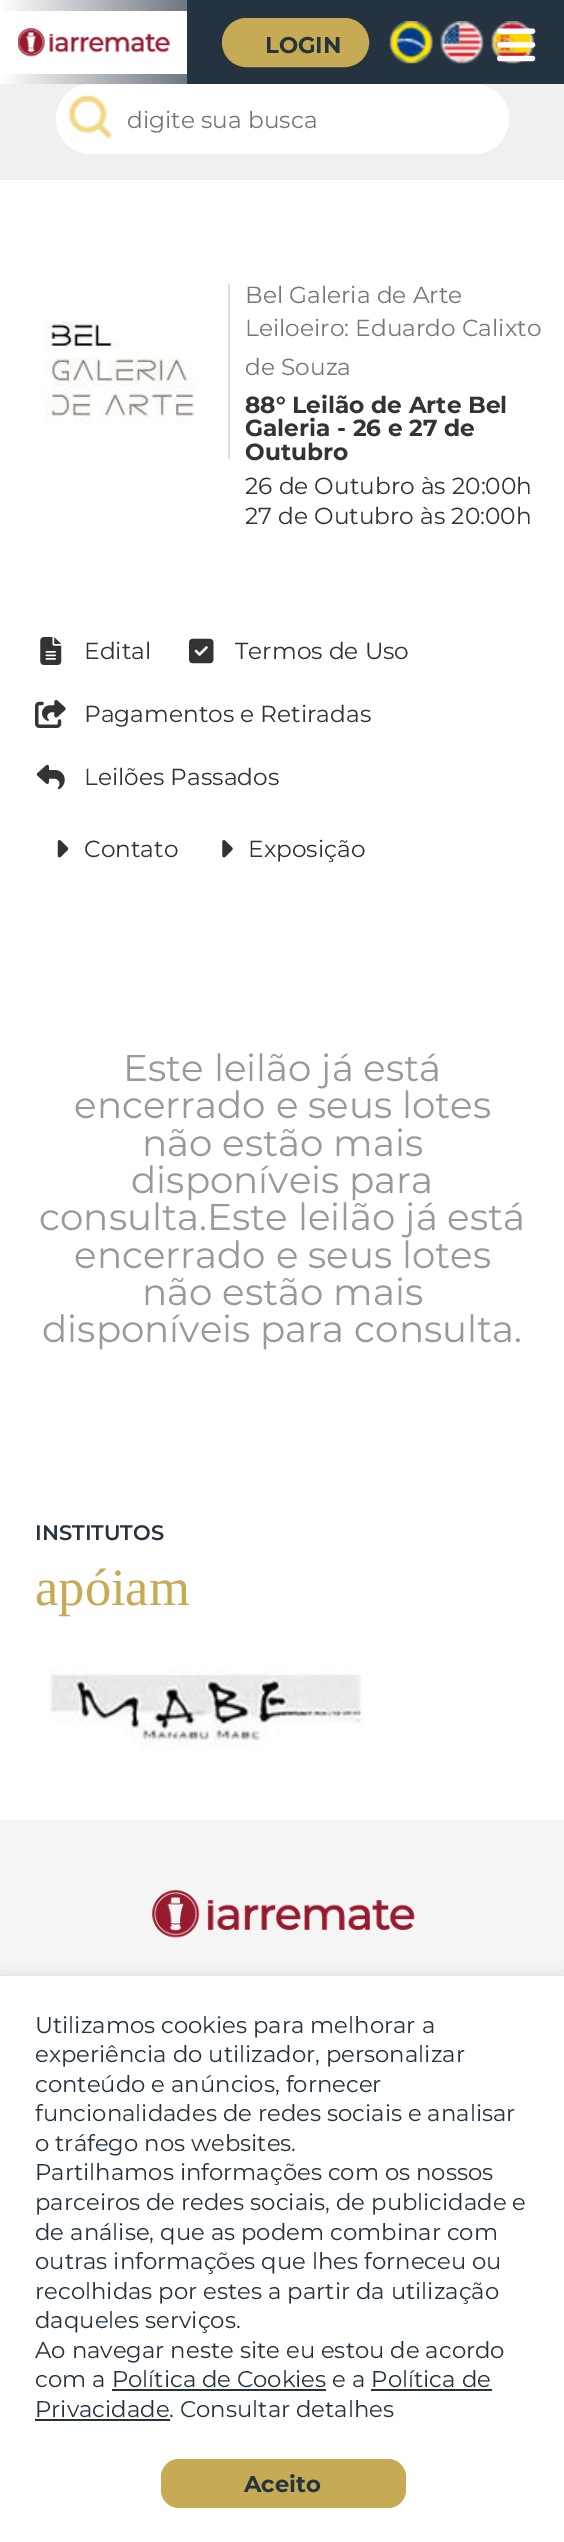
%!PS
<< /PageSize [564 2542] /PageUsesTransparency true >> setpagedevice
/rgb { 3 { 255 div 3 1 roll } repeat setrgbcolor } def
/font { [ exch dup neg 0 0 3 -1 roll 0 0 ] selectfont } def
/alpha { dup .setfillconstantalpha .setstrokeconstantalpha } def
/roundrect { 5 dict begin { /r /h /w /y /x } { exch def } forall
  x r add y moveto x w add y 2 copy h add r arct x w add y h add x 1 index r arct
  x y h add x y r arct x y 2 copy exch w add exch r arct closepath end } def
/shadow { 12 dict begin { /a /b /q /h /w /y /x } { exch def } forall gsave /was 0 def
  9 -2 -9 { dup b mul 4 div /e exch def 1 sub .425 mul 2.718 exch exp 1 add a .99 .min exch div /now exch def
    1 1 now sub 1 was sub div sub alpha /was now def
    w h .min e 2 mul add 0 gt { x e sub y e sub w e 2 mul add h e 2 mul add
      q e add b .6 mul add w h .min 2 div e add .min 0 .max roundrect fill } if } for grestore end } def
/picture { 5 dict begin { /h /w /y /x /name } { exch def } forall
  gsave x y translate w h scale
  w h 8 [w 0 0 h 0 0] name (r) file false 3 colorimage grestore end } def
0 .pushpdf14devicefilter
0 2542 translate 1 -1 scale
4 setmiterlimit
255 255 255 rgb
0 0 564 2542 rectfill
gsave 3 0 moveto 187 0 lineto 187 84 lineto 3 84 lineto closepath clip newpath
<< /ShadingType 2 /ColorSpace /DeviceRGB /Coords [0 42 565 42] /Extend [true true] /Function << /FunctionType 3 /Domain [0 1] /Functions [<< /FunctionType 2 /Domain [0 1] /C0 [1 1 1] /C1 [0.145 0.196 0.251] /N 1 >> << /FunctionType 2 /Domain [0 1] /C0 [0.145 0.196 0.251] /C1 [0.145 0.196 0.251] /N 1 >>] /Bounds [0.5] /Encode [0 1 0 1] >> >> shfill grestore
3 11 184 63 rectfill
(img/1.rgb) 18 28 153 29 picture
37 50 64 rgb
187 0 377 84 rectfill
(img/5.rgb) 491 21 44 43 picture
(img/2.rgb) 497 28 39 34 picture
198 170 84 rgb
223 19 145 47 23.5 roundrect gsave fill grestore
2 setlinewidth
stroke
(img/3.rgb) 389 21 44 43 picture
(img/4.rgb) 440 21 44 43 picture
240 240 240 rgb
0 84 564 96 rectfill
255 255 255 rgb
56 84 453 70 35 roundrect fill
(img/6.rgb) 68 94 45 45 picture
221 221 221 rgb
228 284 2 175 rectfill
(img/7.rgb) 44 321 150 103 picture
(img/8.rgb) 40 637 22 28 picture
(img/9.rgb) 189 638 25 26 picture
(img/10.rgb) 35 700 31 28 picture
(img/11.rgb) 36 764 29 26 picture
(img/12.rgb) 57 840 12 18 picture
(img/13.rgb) 222 840 11 18 picture
(img/14.rgb) 47 1669 316 81 picture
245 245 245 rgb
0 1820 564 156 rectfill
(img/15.rgb) 152 1890 263 48 picture
0 0 0 rgb
0 1976 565 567 0 9 0.1 shadow
[
  [0 1976 564 566 255 255 255]
  [112 2389 214 2 37 50 64]
  [371 2389 121 2 37 50 64]
  [35 2419 135 2 37 50 64]
] { aload pop rgb rectfill } forall
198 170 84 rgb
161 2459 245 49 18 roundrect fill
/Montserrat-Bold 22.75 font
37 50 64 rgb
265 53 moveto (LOGIN) show
/Montserrat-Regular 23.3 font
119 119 119 rgb
[
  [(digite sua busca) 127 128]
  [(Bel Galeria de Arte) 245 303]
  [(Leiloeiro: Eduardo Calixto) 245 336]
  [(de Souza) 245 375]
] { aload pop moveto show } forall
/Montserrat-Bold 23.3 font
51 51 51 rgb
[
  [(88° Leilão de Arte Bel) 245 413]
  [(Galeria - 26 e 27 de) 245 436]
  [(Outubro) 245 460]
] { aload pop moveto show } forall
/Montserrat-Regular 23.3 font
[
  [(26 de Outubro às 20:00h) 245 494]
  [(27 de Outubro às 20:00h) 245 524]
  [(Edital) 84 659]
  [(Termos de Uso) 235 659]
  [(Pagamentos e Retiradas) 84 722]
  [(Leilões Passados) 84 785]
  [(Contato) 84 857]
  [(Exposição) 248 857]
] { aload pop moveto show } forall
/Montserrat-Regular 37.3 font
153 153 153 rgb
[
  [(Este leilão já está) 123 1081]
  [(encerrado e seus lotes) 74 1118]
  [(não estão mais) 142 1156]
  [(disponíveis para) 131 1193]
  [(consulta.Este leilão já está) 39 1230]
  [(encerrado e seus lotes) 74 1268]
  [(não estão mais) 142 1305]
  [(disponíveis para consulta.) 42 1342]
] { aload pop moveto show } forall
/Montserrat-SemiBold 21 font
37 50 64 rgb
35 1540 moveto (INSTITUTOS) show
/LiberationSerif-Regular 52.5 font
198 170 84 rgb
35 1605 moveto (apóiam) show
/Montserrat-Regular 22.75 font
37 50 64 rgb
[
  [(Utilizamos cookies para melhorar a) 35 2033]
  [(experiência do utilizador, personalizar) 35 2062]
  [(conteúdo e anúncios, fornecer) 35 2092]
  [(funcionalidades de redes sociais e analisar) 35 2121]
  [(o tráfego nos websites.) 35 2151]
  [(Partilhamos informações com os nossos) 35 2180]
  [(parceiros de redes sociais, de publicidade e) 35 2210]
  [(de análise, que as podem combinar com) 35 2240]
  [(outras informações que lhes forneceu ou) 35 2269]
  [(recolhidas por estes a partir da utilização) 35 2299]
  [(daqueles serviços.) 35 2328]
  [(Ao navegar neste site eu estou de acordo) 35 2358]
  [(com a Política de Cookies e a Política de) 35 2387]
  [(Privacidade. Consultar detalhes) 35 2417]
] { aload pop moveto show } forall
/Montserrat-Bold 22.75 font
244 2492 moveto (Aceito) show
.poppdf14devicefilter showpage
